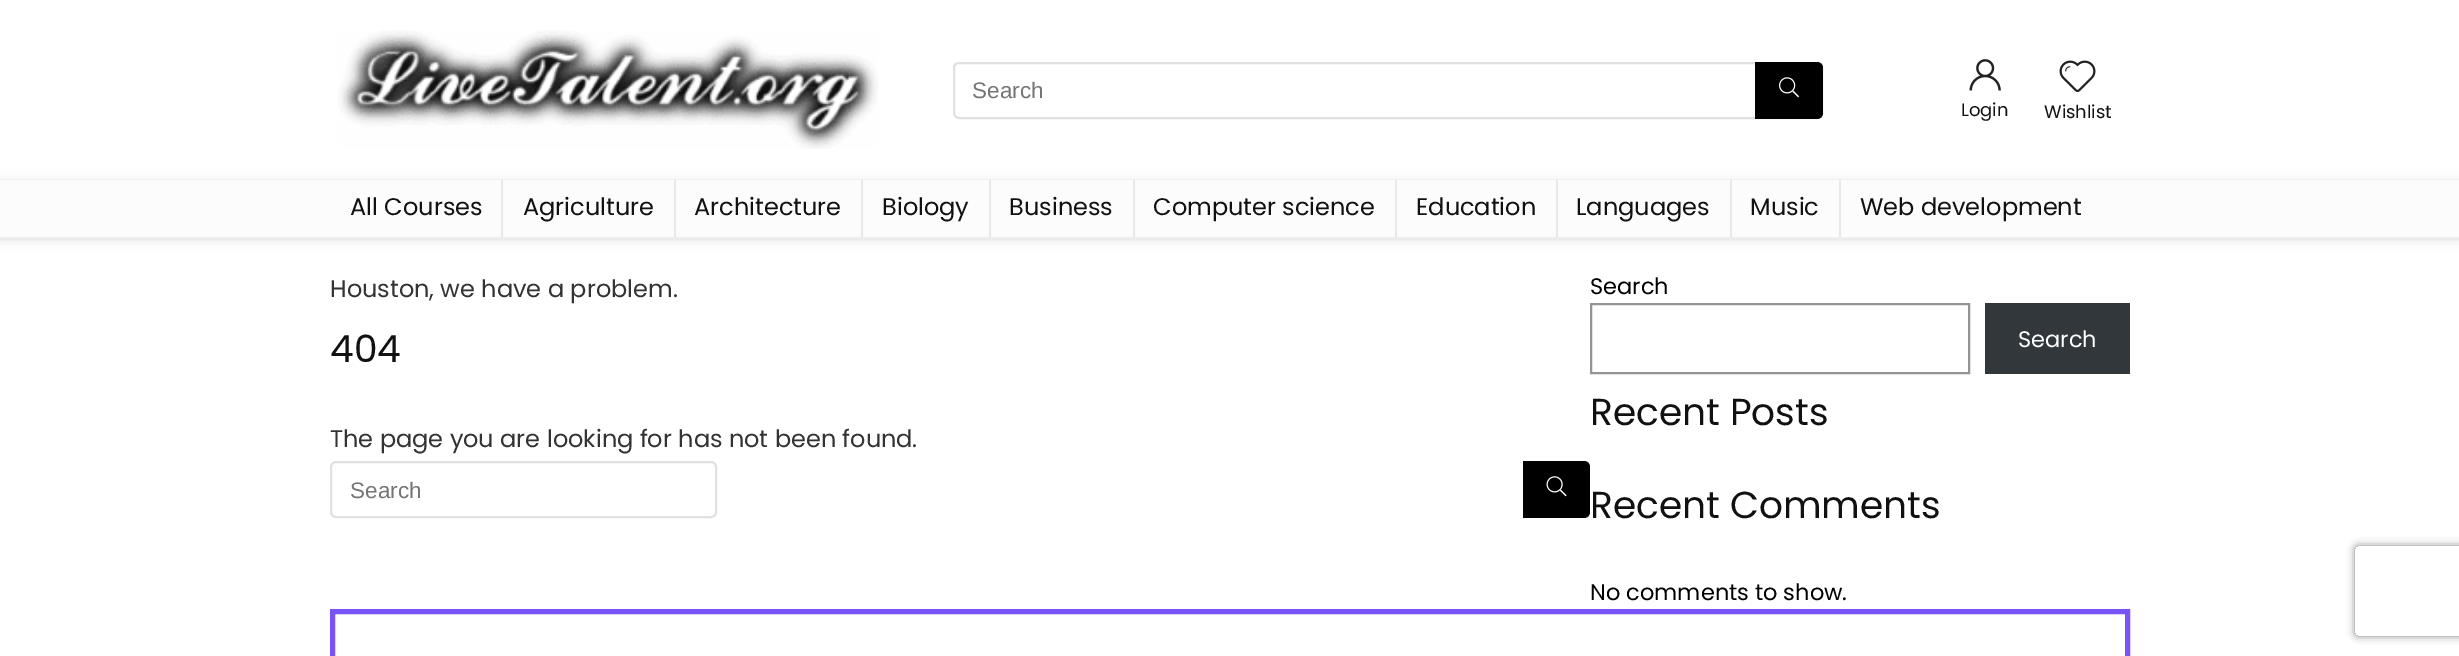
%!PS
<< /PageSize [2459 656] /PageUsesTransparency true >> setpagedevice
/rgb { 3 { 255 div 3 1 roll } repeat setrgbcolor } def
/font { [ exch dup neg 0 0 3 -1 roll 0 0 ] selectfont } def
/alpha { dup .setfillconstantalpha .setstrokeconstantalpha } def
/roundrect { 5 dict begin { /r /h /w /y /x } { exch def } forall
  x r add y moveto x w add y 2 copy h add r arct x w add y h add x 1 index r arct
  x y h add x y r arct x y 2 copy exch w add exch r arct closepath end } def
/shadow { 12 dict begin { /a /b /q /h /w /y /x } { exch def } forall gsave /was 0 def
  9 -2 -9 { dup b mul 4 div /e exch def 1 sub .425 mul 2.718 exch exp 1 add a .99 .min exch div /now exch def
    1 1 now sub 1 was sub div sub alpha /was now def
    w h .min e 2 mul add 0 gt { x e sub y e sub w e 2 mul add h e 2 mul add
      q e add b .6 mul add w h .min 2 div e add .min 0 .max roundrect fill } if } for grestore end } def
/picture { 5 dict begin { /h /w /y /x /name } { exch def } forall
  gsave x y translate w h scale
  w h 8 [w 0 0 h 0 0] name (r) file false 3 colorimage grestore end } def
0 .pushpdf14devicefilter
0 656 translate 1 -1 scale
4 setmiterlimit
255 255 255 rgb
0 0 2459 656 rectfill
(img/1.rgb) 338 30 540 119 picture
225 225 225 rgb
2 setlinewidth
954 63 868 55 5 roundrect stroke
0 0 0 rgb
1755 62 moveto 1817 62 lineto 1820.5 62 1823 64.5 1823 68 curveto 1823 113 lineto 1823 116.5 1820.5 119 1817 119 curveto 1755 119 lineto closepath fill
(img/2.rgb) 1779 77 20 21 picture
(img/3.rgb) 1969 59 32 32 picture
(img/4.rgb) 2059 60 37 32 picture
247 247 247 rgb
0 180 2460 59 rectstroke
0 0 0 rgb
0 182 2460 58 0 6 0.1 shadow
[
  [0 180 2459 57 252 252 252]
  [0 237 2459 2 238 238 238]
  [501 180 2 57 232 232 232]
  [674 180 2 57 232 232 232]
  [861 180 2 57 232 232 232]
  [989 180 2 57 232 232 232]
  [1133 180 2 57 232 232 232]
  [1395 180 2 57 232 232 232]
  [1556 180 2 57 232 232 232]
  [1730 180 2 57 232 232 232]
  [1839 180 2 57 232 232 232]
] { aload pop rgb rectfill } forall
225 225 225 rgb
331 462 385 55 5 roundrect stroke
0 0 0 rgb
1523 461 moveto 1584 461 lineto 1587.5 461 1590 463.5 1590 467 curveto 1590 512 lineto 1590 515.5 1587.5 518 1584 518 curveto 1523 518 lineto closepath fill
(img/5.rgb) 1546 476 21 21 picture
148 148 148 rgb
1591 304 378 69 rectstroke
50 55 60 rgb
1985 303 145 71 rectfill
120 84 247 rgb
5 setlinewidth
332.5 611.5 1795 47 rectstroke
gsave
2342 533 moveto 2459 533 lineto 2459 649 lineto 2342 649 lineto closepath 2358 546 moveto 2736 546 lineto 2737.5 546 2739 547.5 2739 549 curveto 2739 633 lineto 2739 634.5 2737.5 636 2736 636 curveto 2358 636 lineto 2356.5 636 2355 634.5 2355 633 curveto 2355 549 lineto 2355 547.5 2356.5 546 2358 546 curveto closepath eoclip newpath
128 128 128 rgb
2355 546 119 90 3 4 1 shadow
grestore
/LiberationSans-Regular 22.5 font
117 117 117 rgb
972 98 moveto (Search) show
/Poppins-Regular 18 font
17 17 17 rgb
1961 116 moveto (Login) show
2044 118 moveto (Wishlist) show
/Poppins-Regular 24 font
[
  [(All Courses) 350 215]
  [(Agriculture) 523 215]
  [(Architecture) 694 215]
  [(Biology) 882 215]
  [(Business) 1009 215]
  [(Computer science) 1153 215]
  [(Education) 1416 215]
  [(Languages) 1576 215]
  [(Music) 1750 215]
  [(Web development) 1860 215]
] { aload pop moveto show } forall
51 51 51 rgb
330 297 moveto (Houston, we have a problem.) show
/Poppins-Regular 37.5 font
17 17 17 rgb
330 362 moveto (404) show
/Poppins-Regular 24 font
51 51 51 rgb
330 447 moveto (The page you are looking for has not been found.) show
/LiberationSans-Regular 22.5 font
117 117 117 rgb
350 498 moveto (Search) show
/Poppins-Regular 22.5 font
0 0 0 rgb
1590 294 moveto (Search) show
255 255 255 rgb
2018 347 moveto (Search) show
/Poppins-Regular 37.5 font
17 17 17 rgb
1590 425 moveto (Recent Posts) show
1590 518 moveto (Recent Comments) show
/Poppins-Regular 22.5 font
0 0 0 rgb
1590 600 moveto (No comments to show.) show
.poppdf14devicefilter showpage
